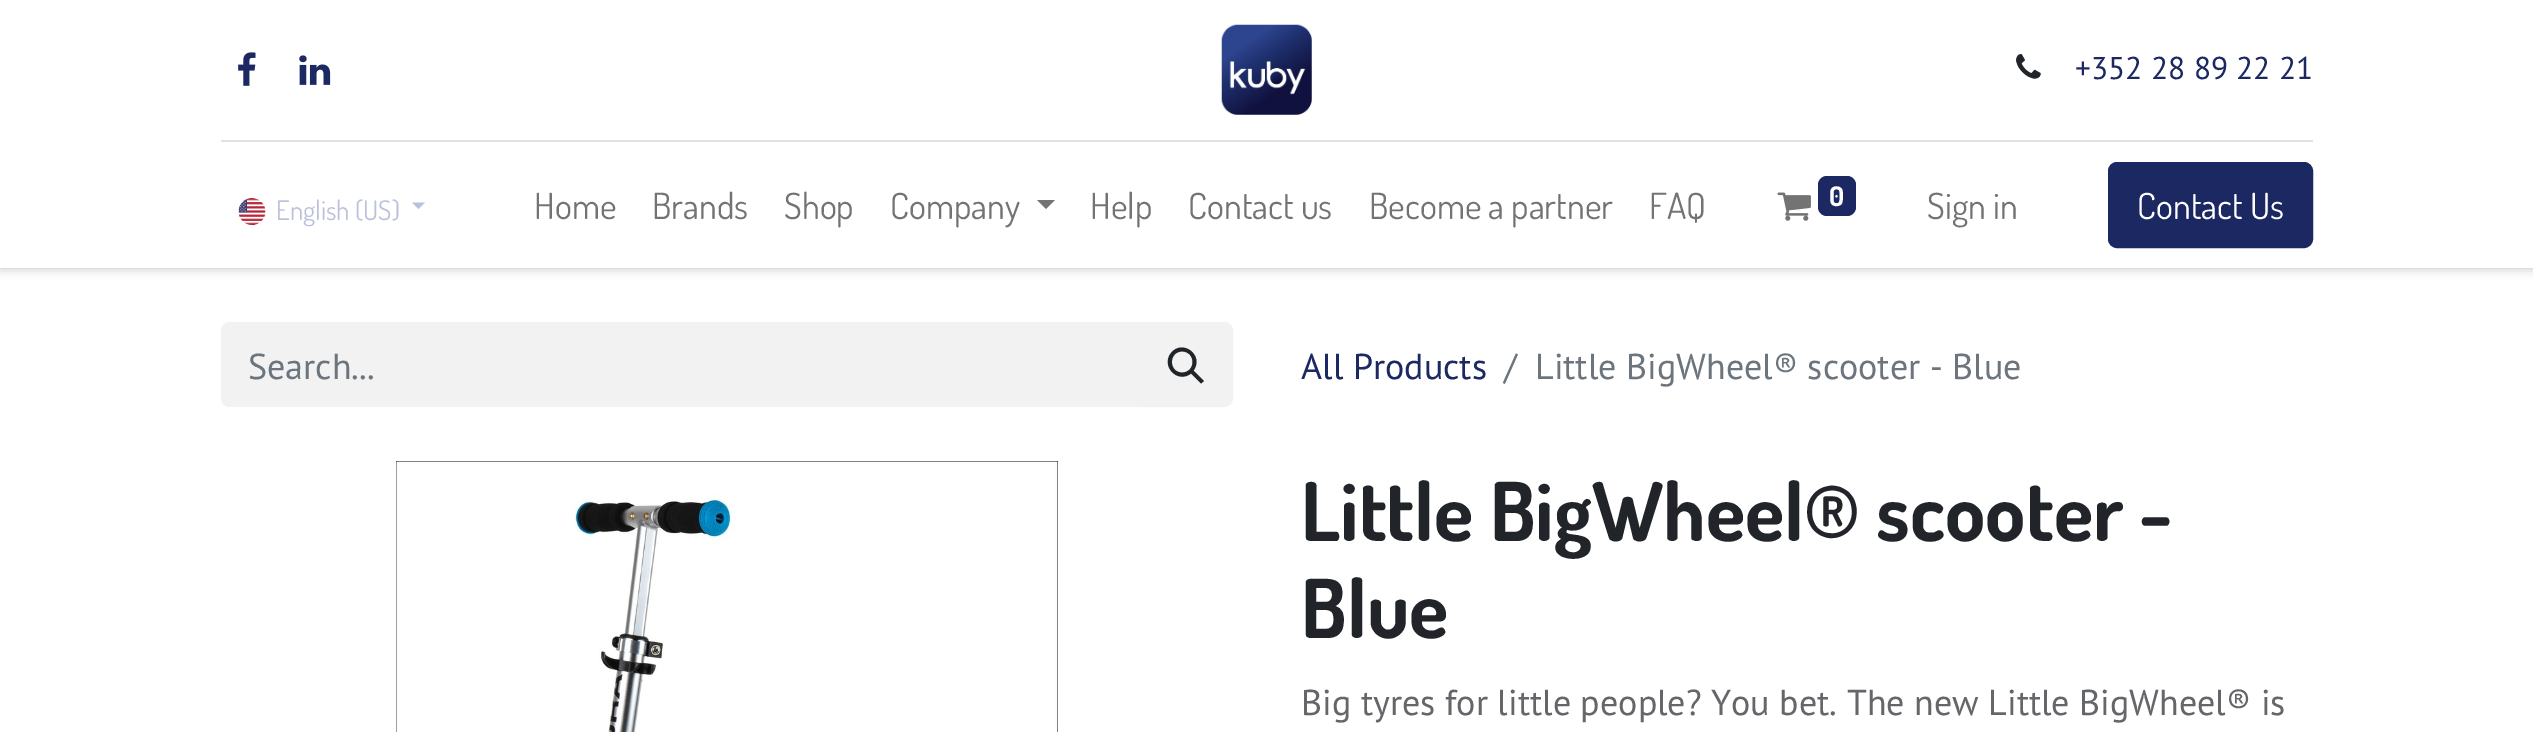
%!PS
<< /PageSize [2533 732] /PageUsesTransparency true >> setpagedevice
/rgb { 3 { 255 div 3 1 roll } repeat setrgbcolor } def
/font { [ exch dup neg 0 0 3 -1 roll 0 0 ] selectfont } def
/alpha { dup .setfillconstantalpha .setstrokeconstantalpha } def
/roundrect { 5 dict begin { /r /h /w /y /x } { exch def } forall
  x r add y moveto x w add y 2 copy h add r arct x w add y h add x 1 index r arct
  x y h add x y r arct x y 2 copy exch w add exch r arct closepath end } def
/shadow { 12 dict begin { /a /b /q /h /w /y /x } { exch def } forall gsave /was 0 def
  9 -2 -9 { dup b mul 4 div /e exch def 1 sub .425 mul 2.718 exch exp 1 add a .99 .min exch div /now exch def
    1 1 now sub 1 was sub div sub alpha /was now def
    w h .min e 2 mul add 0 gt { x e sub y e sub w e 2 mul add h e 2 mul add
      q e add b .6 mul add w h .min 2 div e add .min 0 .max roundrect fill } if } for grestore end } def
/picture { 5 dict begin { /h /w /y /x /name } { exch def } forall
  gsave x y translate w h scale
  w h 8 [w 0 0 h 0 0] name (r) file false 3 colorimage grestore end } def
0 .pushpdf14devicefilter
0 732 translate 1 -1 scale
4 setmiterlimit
255 255 255 rgb
0 0 2533 732 rectfill
0 0 0 rgb
0 0 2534 268 0 5.5 0.25 shadow
255 255 255 rgb
0 0 2533 268 rectfill
(img/1.rgb) 238 52 18 34 picture
(img/2.rgb) 299 55 32 30 picture
(img/3.rgb) 1221 24 91 91 picture
(img/4.rgb) 2016 54 25 25 picture
222 226 230 rgb
221 140 2092 2 rectfill
(img/5.rgb) 238 198 28 27 picture
187 193 218 rgb
412 202.5 moveto 425 202.5 lineto 418.5 209 lineto closepath fill
115 115 115 rgb
1037 200 moveto 1055 200 lineto 1046 209 lineto closepath fill
(img/6.rgb) 1777 192 34 29 picture
28 40 98 rgb
1818 176 38 40 9 roundrect fill
2109 163 203 84 8 roundrect gsave fill grestore
2 setlinewidth
stroke
242 242 242 rgb
230 322 moveto 1141 322 lineto 1141 407 lineto 230 407 lineto 225 407 221 403 221 398 curveto 221 331 lineto 221 326 225 322 230 322 curveto closepath fill
1140 323 moveto 1224 323 lineto 1228.5 323 1232 326.5 1232 331 curveto 1232 398 lineto 1232 402.5 1228.5 406 1224 406 curveto 1140 406 lineto closepath gsave fill grestore
stroke
33 37 41 rgb
1171 353 moveto 1182.5 338.5 1204.5 355.5 1193.5 370.5 curveto 1204 381 lineto 1201 383.5 lineto 1191 373.5 lineto 1177.5 384 1160.5 366 1171 353 curveto closepath 1182 351.5 moveto 1168.5 351.5 1168.5 372.5 1182 372.5 curveto 1196 372.5 1196 351.5 1182 351.5 curveto closepath fill
(img/7.rgb) 396 461 662 271 picture
/PTSans-Regular 31.5 font
28 40 98 rgb
2075 79 moveto (+352 28 89 22 21) show
/Dosis-Regular 27 font
187 193 218 rgb
276 220 moveto (English \(US\)) show
/Dosis-Regular 36 font
115 115 115 rgb
[
  [(Home) 534 219]
  [(Brands) 652 219]
  [(Shop) 784 219]
  [(Company) 890 219]
  [(Help) 1090 219]
  [(Contact us) 1188 219]
  [(Become a partner) 1369 219]
  [(FAQ) 1649 219]
] { aload pop moveto show } forall
/Dosis-Bold 27 font
255 255 255 rgb
1829 206 moveto (0) show
/Dosis-Regular 36 font
115 115 115 rgb
1927 219 moveto (Sign in) show
255 255 255 rgb
2137 219 moveto (Contact Us) show
/PTSans-Regular 36 font
108 117 125 rgb
248 379 moveto (Search...) show
28 40 98 rgb
1301 379 moveto (All Products) show
108 117 125 rgb
1504 379 moveto (/) show
1535 379 moveto (Little BigWheel® scooter - Blue) show
/Dosis-Bold 81 font
33 37 41 rgb
1301 541 moveto (Little BigWheel® scooter -) show
1301 638 moveto (Blue) show
/PTSans-Regular 36 font
100 102 105 rgb
1301 715 moveto (Big tyres for little people? You bet. The new Little BigWheel® is) show
.poppdf14devicefilter showpage
